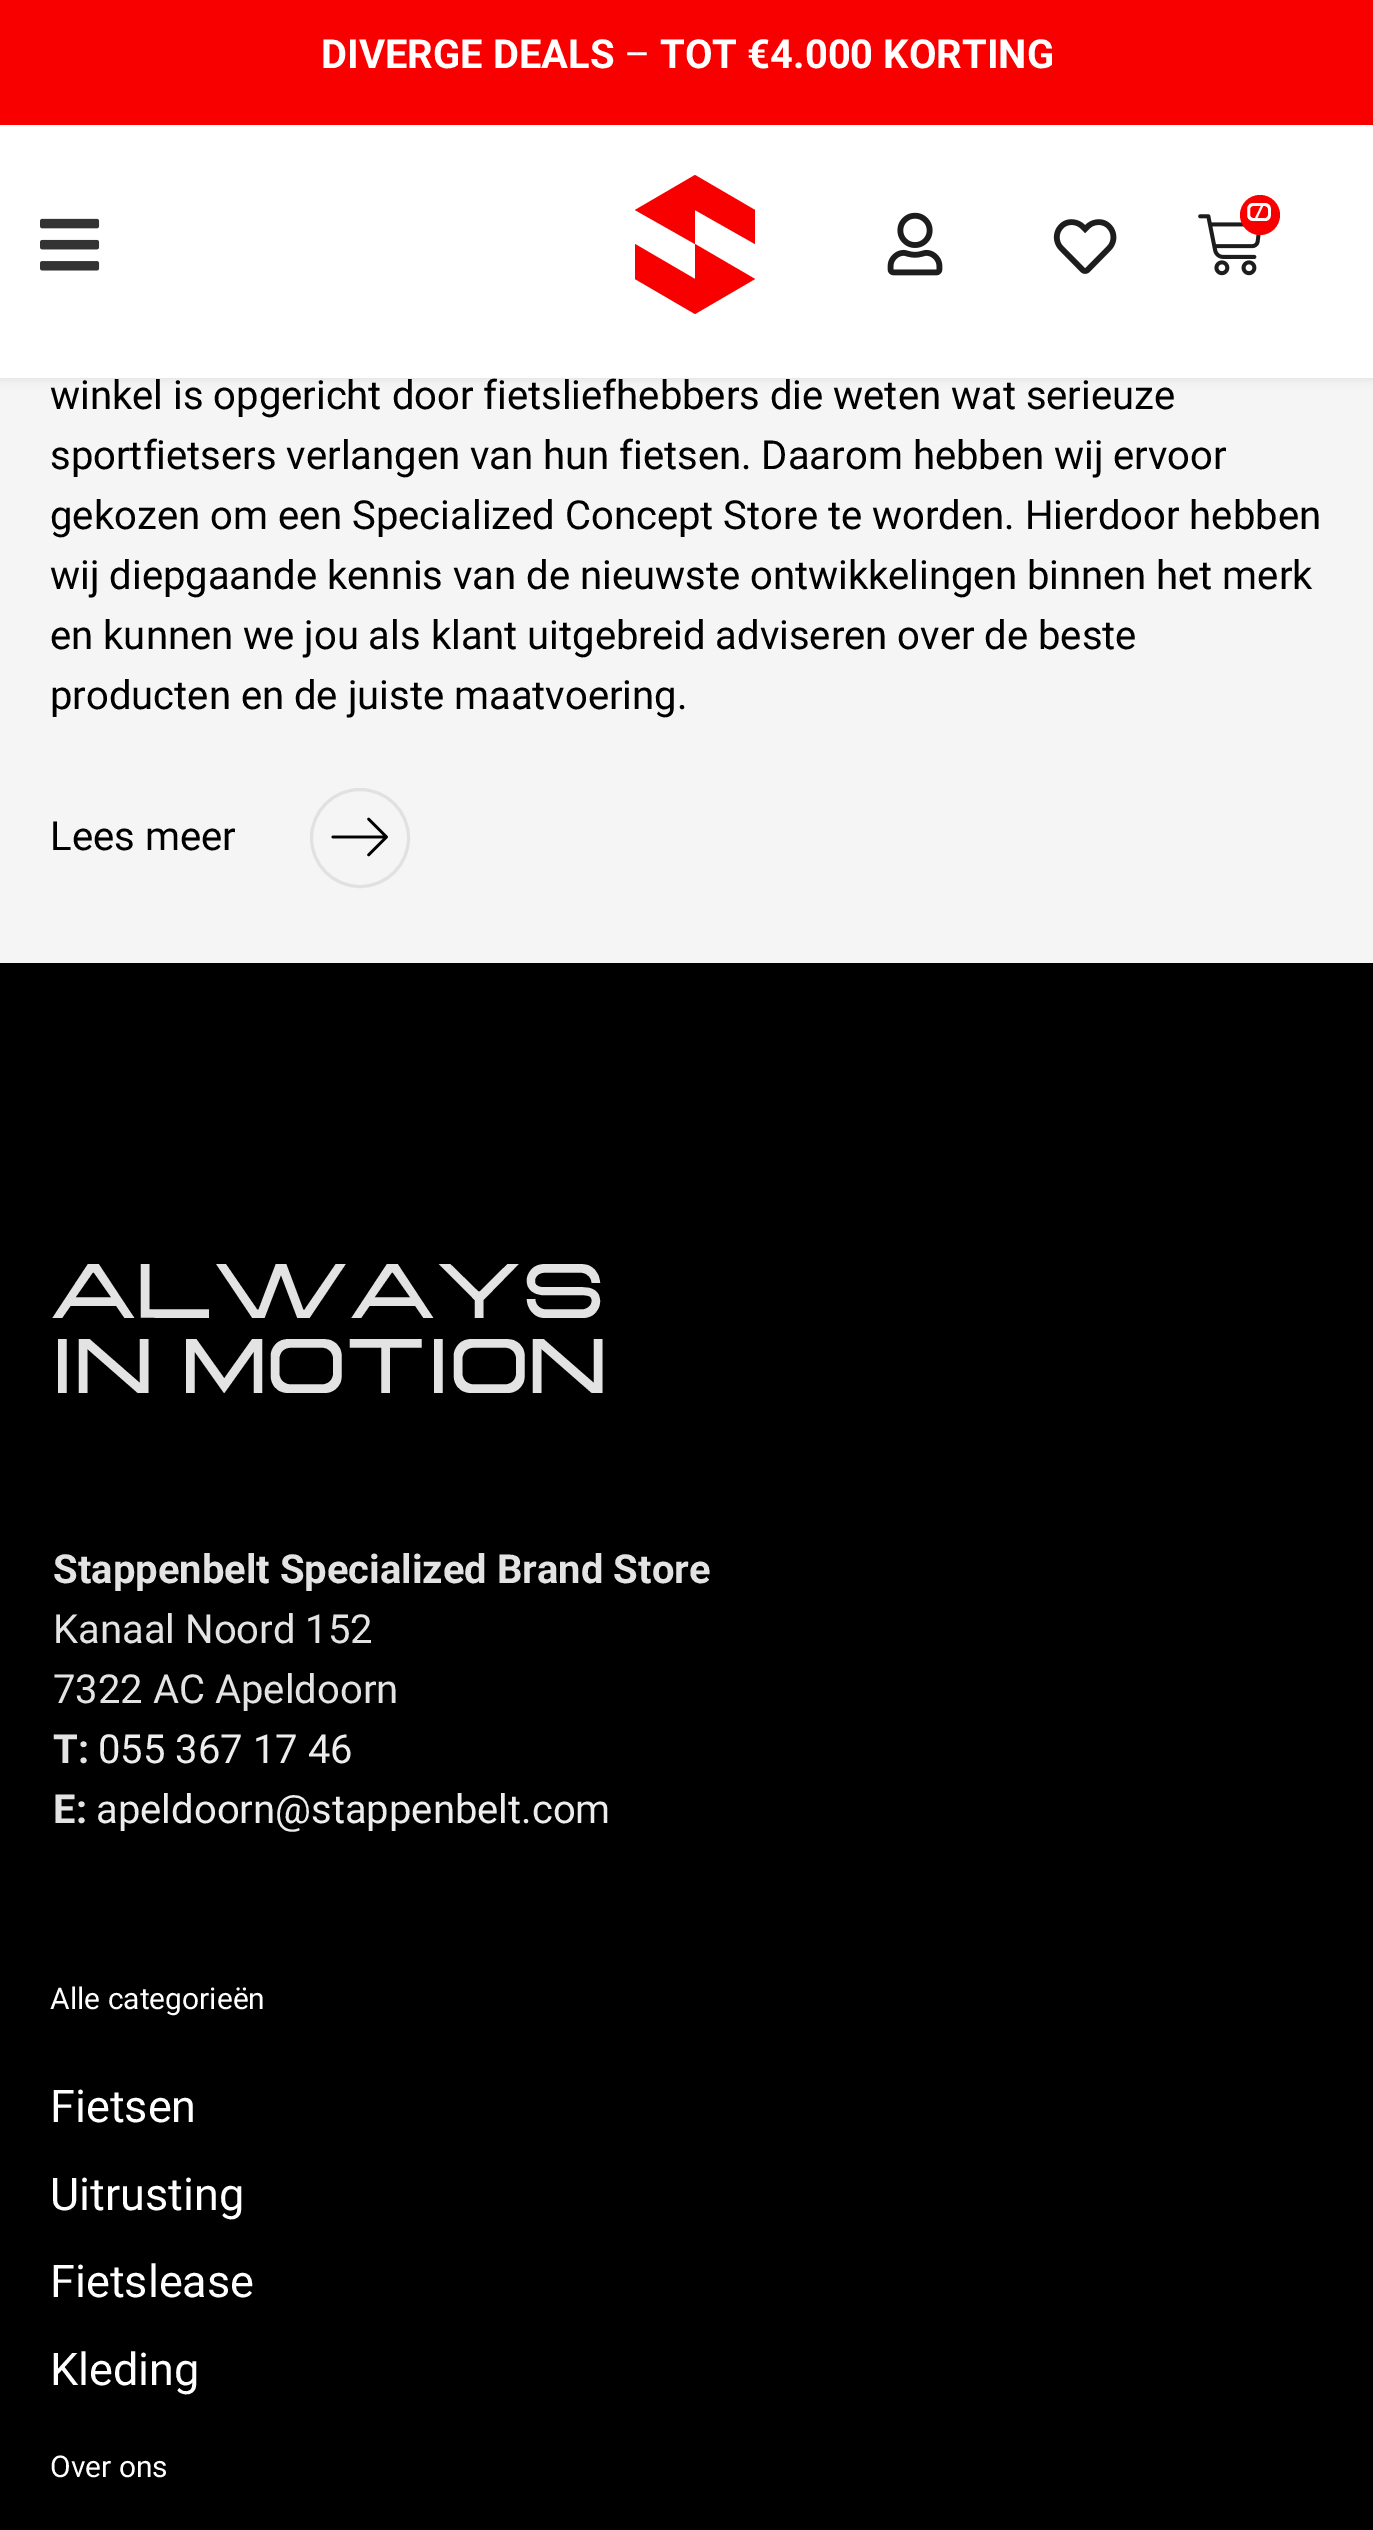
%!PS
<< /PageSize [1373 2530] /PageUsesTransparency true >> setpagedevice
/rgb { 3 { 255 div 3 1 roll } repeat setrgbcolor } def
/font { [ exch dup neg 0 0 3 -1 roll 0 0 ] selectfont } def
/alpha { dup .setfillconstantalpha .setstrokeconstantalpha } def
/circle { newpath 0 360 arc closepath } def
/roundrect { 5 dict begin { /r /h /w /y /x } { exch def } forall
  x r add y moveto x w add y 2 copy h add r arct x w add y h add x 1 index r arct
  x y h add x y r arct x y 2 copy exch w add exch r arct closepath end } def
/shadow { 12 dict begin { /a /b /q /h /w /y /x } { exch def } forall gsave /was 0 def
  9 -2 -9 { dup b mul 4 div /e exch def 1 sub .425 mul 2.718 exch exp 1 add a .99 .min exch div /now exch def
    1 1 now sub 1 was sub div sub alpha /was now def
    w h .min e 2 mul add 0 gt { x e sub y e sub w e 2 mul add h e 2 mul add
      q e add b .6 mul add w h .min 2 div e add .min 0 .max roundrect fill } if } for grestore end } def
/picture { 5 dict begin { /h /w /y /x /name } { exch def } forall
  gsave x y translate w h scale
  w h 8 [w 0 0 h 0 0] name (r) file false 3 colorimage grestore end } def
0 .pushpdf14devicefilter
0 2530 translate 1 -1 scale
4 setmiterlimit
245 245 245 rgb
0 0 1373 2530 rectfill
0 0 0 rgb
0 113 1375 265 0 5 0.1 shadow
249 0 0 rgb
0 0 1373 125 rectfill
255 255 255 rgb
0 125 1373 253 rectfill
249 0 0 rgb
755 210 moveto 755 244 lineto 695 210 lineto 695 244 lineto 635 210 lineto 695 175 lineto closepath fill
755 279 moveto 695 314 lineto 635 279 lineto 635 244 lineto 695 279 lineto 695 244 lineto closepath fill
(img/1.rgb) 887 212 56 64 picture
(img/2.rgb) 1053 219 64 55 picture
(img/3.rgb) 1198 214 63 62 picture
1260 215 20 circle fill
(img/4.rgb) 40 218 60 53 picture
(img/5.rgb) 331 817 57 40 picture
225 225 225 rgb
3 setlinewidth
360 838 48.5 circle stroke
0 0 0 rgb
0 963 1373 1567 rectfill
/Roboto-Bold 40 font
255 255 255 rgb
321 68 moveto (DIVERGE DEALS) show
/Roboto-Regular 40 font
624 68 moveto (–) show
/Roboto-Bold 40 font
660 68 moveto (TOT €4.000 KORTING) show
/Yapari-Medium 25 font
1246 221 moveto (0) show
/Roboto-Regular 40 font
0 0 0 rgb
[
  [(winkel is opgericht door fietsliefhebbers die weten wat serieuze) 50 409]
  [(sportfietsers verlangen van hun fietsen. Daarom hebben wij ervoor) 50 469]
  [(gekozen om een Specialized Concept Store te worden. Hierdoor hebben) 50 529]
  [(wij diepgaande kennis van de nieuwste ontwikkelingen binnen het merk) 50 589]
  [(en kunnen we jou als klant uitgebreid adviseren over de beste) 50 649]
  [(producten en de juiste maatvoering.) 50 709]
  [(Lees meer) 50 850]
] { aload pop moveto show } forall
/Yapari-Medium 75 font
227 227 227 rgb
50 1318 moveto (ALWAYS) show
50 1393 moveto (IN MOTION) show
/Roboto-Bold 40 font
53 1583 moveto (Stappenbelt Specialized Brand Store) show
/Roboto-Regular 40 font
53 1643 moveto (Kanaal Noord 152) show
53 1703 moveto (7322 AC Apeldoorn) show
/Roboto-Bold 40 font
53 1763 moveto (T:) show
/Roboto-Regular 40 font
237 237 237 rgb
98 1763 moveto (055 367 17 46) show
/Roboto-Bold 40 font
227 227 227 rgb
53 1823 moveto (E:) show
/Roboto-Regular 40 font
237 237 237 rgb
96 1823 moveto (apeldoorn@stappenbelt.com) show
/Roboto-Regular 30 font
255 255 255 rgb
50 2009 moveto (Alle categorieën) show
/Roboto-Regular 45 font
[
  [(Fietsen) 50 2122]
  [(Uitrusting) 50 2210]
  [(Fietslease) 50 2297]
  [(Kleding) 50 2385]
] { aload pop moveto show } forall
/Roboto-Regular 30 font
50 2477 moveto (Over ons) show
.poppdf14devicefilter showpage
